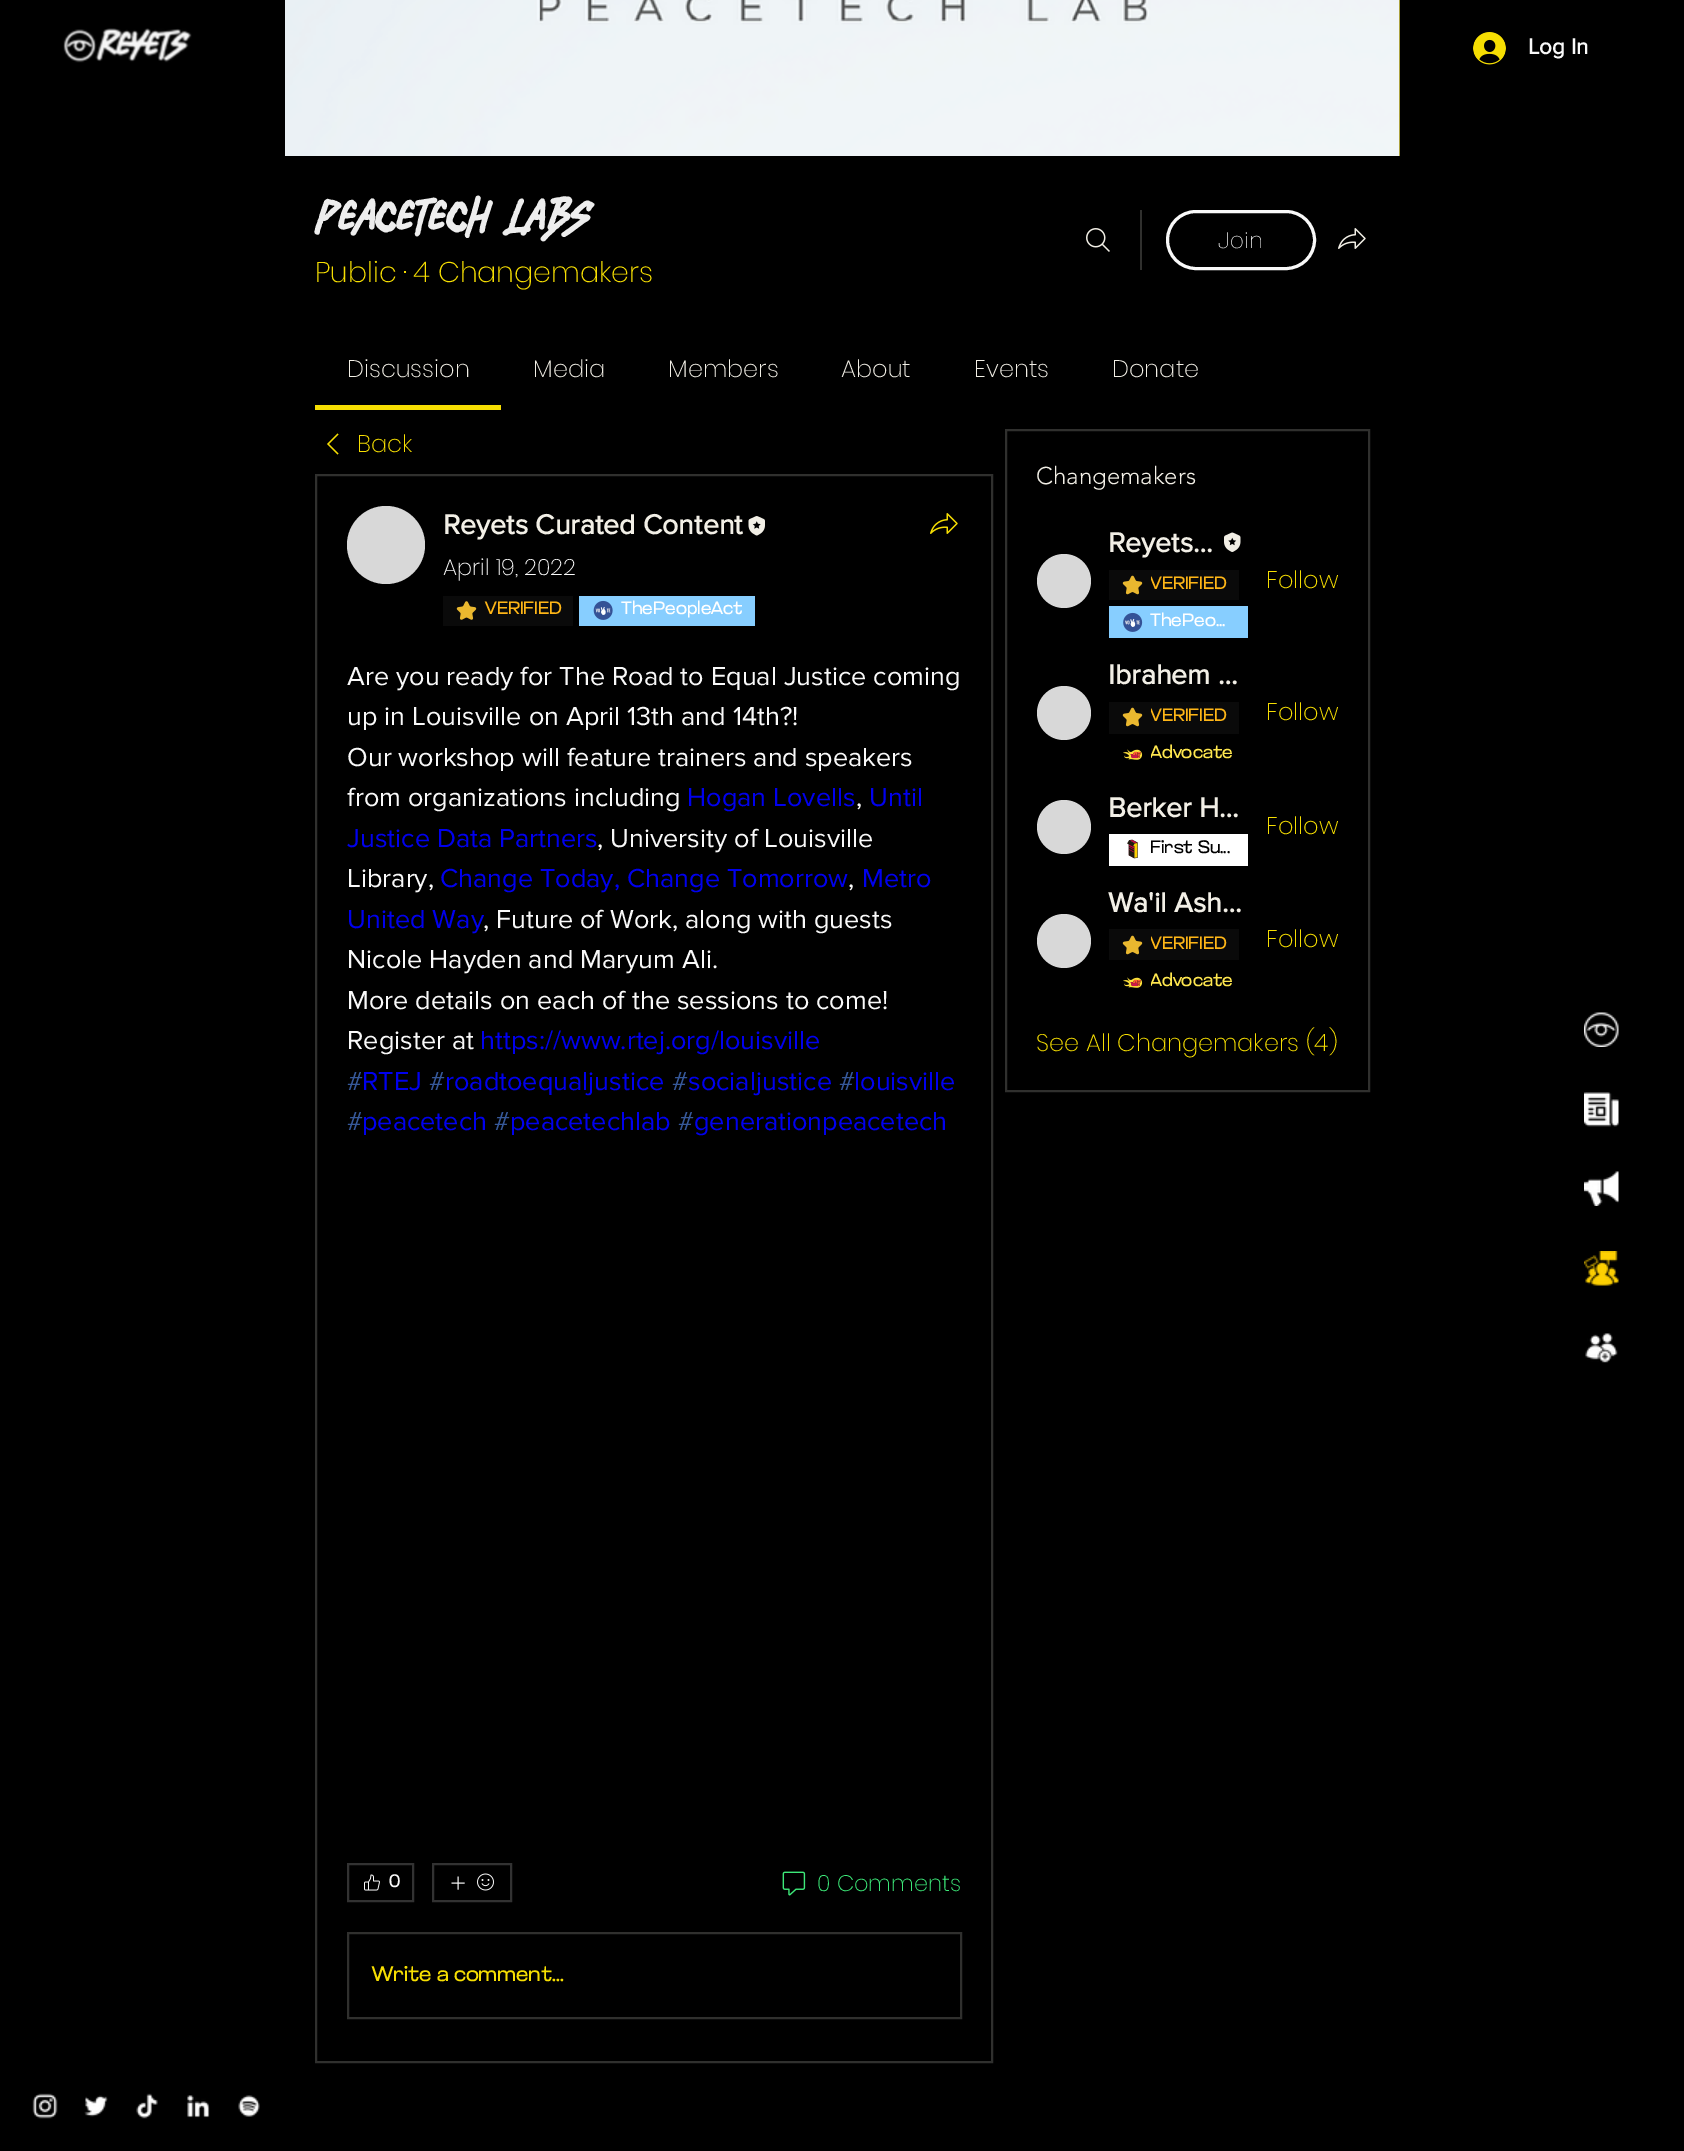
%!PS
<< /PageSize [1684 2151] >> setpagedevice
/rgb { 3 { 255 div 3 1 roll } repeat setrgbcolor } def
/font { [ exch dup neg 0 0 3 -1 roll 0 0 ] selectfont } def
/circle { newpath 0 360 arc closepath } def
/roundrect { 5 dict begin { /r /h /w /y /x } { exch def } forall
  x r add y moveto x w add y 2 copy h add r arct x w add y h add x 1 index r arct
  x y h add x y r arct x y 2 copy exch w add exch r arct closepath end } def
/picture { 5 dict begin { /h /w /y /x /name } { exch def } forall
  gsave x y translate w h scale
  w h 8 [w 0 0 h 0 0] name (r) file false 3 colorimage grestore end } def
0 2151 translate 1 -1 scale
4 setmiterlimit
0 0 0 rgb
0 0 1684 2151 rectfill
(img/1.rgb) 63 28 129 35 picture
(img/2.rgb) 1473 32 33 33 picture
148 133 1 rgb
1399 0 1 156 rectfill
(img/3.rgb) 285 0 1115 156 picture
(img/4.rgb) 1086 228 24 24 picture
48 48 46 rgb
1140 210 2 60 rectfill
249 249 249 rgb
3 setlinewidth
1167.5 211.5 147 57 28.5 roundrect stroke
(img/5.rgb) 1338 228 28 21 picture
246 222 2 rgb
315 405 186 5 rectfill
337.5 433.5 moveto 338.5 434.5 lineto 329 444 lineto 338.5 453.5 lineto 337.5 454.5 lineto 327 444 lineto closepath eofill
48 48 46 rgb
2 setlinewidth
316 475 676 1587 rectstroke
216 216 216 rgb
386 545 39 circle fill
(img/6.rgb) 748 516 17 20 picture
10 10 10 rgb
443 596 130 30 rectfill
(img/7.rgb) 456 601 21 19 picture
135 206 255 rgb
579 596 176 30 rectfill
(img/8.rgb) 593 600 20 20 picture
(img/9.rgb) 930 513 28 21 picture
50 50 50 rgb
348 1864 65 37 rectstroke
(img/10.rgb) 364 1874 16 17 picture
433 1864 78 37 rectstroke
(img/11.rgb) 451 1876 14 14 picture
(img/12.rgb) 477 1873 17 18 picture
(img/13.rgb) 782 1871 24 25 picture
48 48 46 rgb
348 1933 613 85 rectstroke
1006 430 363 661 rectstroke
216 216 216 rgb
1064 581 27 circle fill
(img/14.rgb) 1224 532 17 20 picture
10 10 10 rgb
1109 570 130 30 rectfill
(img/15.rgb) 1122 575 21 20 picture
135 206 255 rgb
1109 606 139 32 rectfill
(img/16.rgb) 1123 612 20 20 picture
216 216 216 rgb
1064 713 27 circle fill
10 10 10 rgb
1109 702 130 32 rectfill
(img/15.rgb) 1122 707 21 20 picture
(img/17.rgb) 1123 749 20 11 picture
216 216 216 rgb
1064 827 27 circle fill
255 255 255 rgb
1109 834 139 32 rectfill
(img/18.rgb) 1127 839 11 20 picture
216 216 216 rgb
1064 941 27 circle fill
10 10 10 rgb
1109 929 130 31 rectfill
(img/15.rgb) 1122 935 21 20 picture
(img/17.rgb) 1123 977 20 11 picture
(img/19.rgb) 1584 1012 35 35 picture
(img/20.rgb) 1584 1092 35 35 picture
(img/21.rgb) 1584 1171 35 35 picture
(img/22.rgb) 1584 1251 35 35 picture
(img/23.rgb) 1585 1333 33 30 picture
(img/24.rgb) 32 2093 26 26 picture
(img/25.rgb) 84 2095 24 22 picture
(img/26.rgb) 136 2093 22 26 picture
(img/27.rgb) 187 2095 23 23 picture
(img/28.rgb) 238 2095 22 22 picture
/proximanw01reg-Bold 22.5 font
249 249 249 rgb
1528 54 moveto (Log In) show
/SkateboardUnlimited-Regular 43.5 font
237 237 237 rgb
315 232 moveto (PeaceTech Labs) show
/Poppins-ExtraLight 28.5 font
246 222 2 rgb
[
  [(Public) 315 282]
  [(·) 403 282]
  [(4 Changemakers) 413 282]
] { aload pop moveto show } forall
/WorkSans-ExtraLight 24 font
249 249 249 rgb
1218 248 moveto (Join) show
/Poppins-ExtraLight 24 font
242 239 230 rgb
[
  [(Discussion) 347 377]
  [(Media) 533 377]
  [(Members) 668 377]
  [(About) 841 377]
  [(Events) 974 377]
  [(Donate) 1112 377]
] { aload pop moveto show } forall
246 222 2 rgb
357 452 moveto (Back) show
/proximanw01reg-Bold 28.5 font
242 239 230 rgb
443 534 moveto (Reyets Curated Content) show
/Poppins-ExtraLight 22.5 font
249 249 249 rgb
443 575 moveto (April 19, 2022) show
/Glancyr-Regular 18 font
255 182 23 rgb
485 614 moveto (VERIFIED) show
255 255 255 rgb
621 614 moveto (ThePeopleAct) show
/proximanw01reg-Regular 27 font
249 249 249 rgb
[
  [(Are you ready for The Road to Equal Justice coming) 347 685]
  [(up in Louisville on April 13th and 14th?!) 347 725]
  [(Our workshop will feature trainers and speakers) 347 766]
  [(from organizations including) 347 806]
] { aload pop moveto show } forall
0 0 238 rgb
687 806 moveto (Hogan Lovells) show
249 249 249 rgb
856 806 moveto (,) show
0 0 238 rgb
869 806 moveto (Until) show
347 847 moveto (Justice Data Partners) show
249 249 249 rgb
597 847 moveto (, University of Louisville) show
347 887 moveto (Library,) show
0 0 238 rgb
440 887 moveto (Change Today, Change Tomorrow) show
249 249 249 rgb
848 887 moveto (,) show
0 0 238 rgb
862 887 moveto (Metro) show
347 928 moveto (United Way) show
249 249 249 rgb
[
  [(, Future of Work, along with guests) 483 928]
  [(Nicole Hayden and Maryum Ali.) 347 968]
  [(More details on each of the sessions to come!) 347 1009]
  [(Register at) 347 1049]
] { aload pop moveto show } forall
0 0 238 rgb
480 1049 moveto (https://www.rtej.org/louisville) show
54 88 153 rgb
347 1090 moveto (#) show
0 0 238 rgb
362 1090 moveto (RTEJ) show
54 88 153 rgb
429 1090 moveto (#) show
0 0 238 rgb
445 1090 moveto (roadtoequaljustice) show
54 88 153 rgb
672 1090 moveto (#) show
0 0 238 rgb
688 1090 moveto (socialjustice) show
54 88 153 rgb
839 1090 moveto (#) show
0 0 238 rgb
854 1090 moveto (louisville) show
54 88 153 rgb
347 1130 moveto (#) show
0 0 238 rgb
362 1130 moveto (peacetech) show
54 88 153 rgb
494 1130 moveto (#) show
0 0 238 rgb
510 1130 moveto (peacetechlab) show
54 88 153 rgb
678 1130 moveto (#) show
0 0 238 rgb
694 1130 moveto (generationpeacetech) show
/Glancyr-Regular 18 font
249 249 249 rgb
389 1887 moveto (0) show
/Poppins-ExtraLight 22.5 font
61 233 121 rgb
817 1891 moveto (0 Comments) show
/Glancyr-Regular 21 font
246 222 2 rgb
372 1981 moveto (Write a comment...) show
/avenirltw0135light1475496-Light 24 font
242 239 230 rgb
1036 484 moveto (Changemakers) show
/proximanw01reg-Bold 28.5 font
1108 552 moveto (Reyets…) show
gsave
1151 573 76 24 rectclip
/Glancyr-Regular 18 font
255 182 23 rgb
1150 589 moveto (VERIFIED) show
grestore
/Glancyr-Regular 18 font
255 255 255 rgb
1150 626 moveto (ThePeo...) show
/Poppins-ExtraLight 24 font
246 222 2 rgb
1266 588 moveto (Follow) show
/proximanw01reg-Bold 28.5 font
242 239 230 rgb
1108 684 moveto (Ibrahem …) show
gsave
1151 705 76 26 rectclip
/Glancyr-Regular 18 font
255 182 23 rgb
1150 721 moveto (VERIFIED) show
grestore
gsave
1151 743 82 24 rectclip
/Glancyr-Regular 18 font
255 231 79 rgb
1150 758 moveto (Advocate) show
grestore
/Poppins-ExtraLight 24 font
246 222 2 rgb
1266 720 moveto (Follow) show
/proximanw01reg-Bold 28.5 font
242 239 230 rgb
1108 817 moveto (Berker H…) show
/Glancyr-Regular 18 font
0 0 0 rgb
1150 853 moveto (First Su...) show
/Poppins-ExtraLight 24 font
246 222 2 rgb
1266 834 moveto (Follow) show
/proximanw01reg-Bold 28.5 font
242 239 230 rgb
1108 912 moveto (Wa'il Ash…) show
gsave
1151 932 76 25 rectclip
/Glancyr-Regular 18 font
255 182 23 rgb
1150 949 moveto (VERIFIED) show
grestore
gsave
1151 969 82 26 rectclip
/Glancyr-Regular 18 font
255 231 79 rgb
1150 986 moveto (Advocate) show
grestore
/Poppins-ExtraLight 24 font
246 222 2 rgb
1266 947 moveto (Follow) show
1036 1051 moveto (See All Changemakers \(4\)) show
showpage
